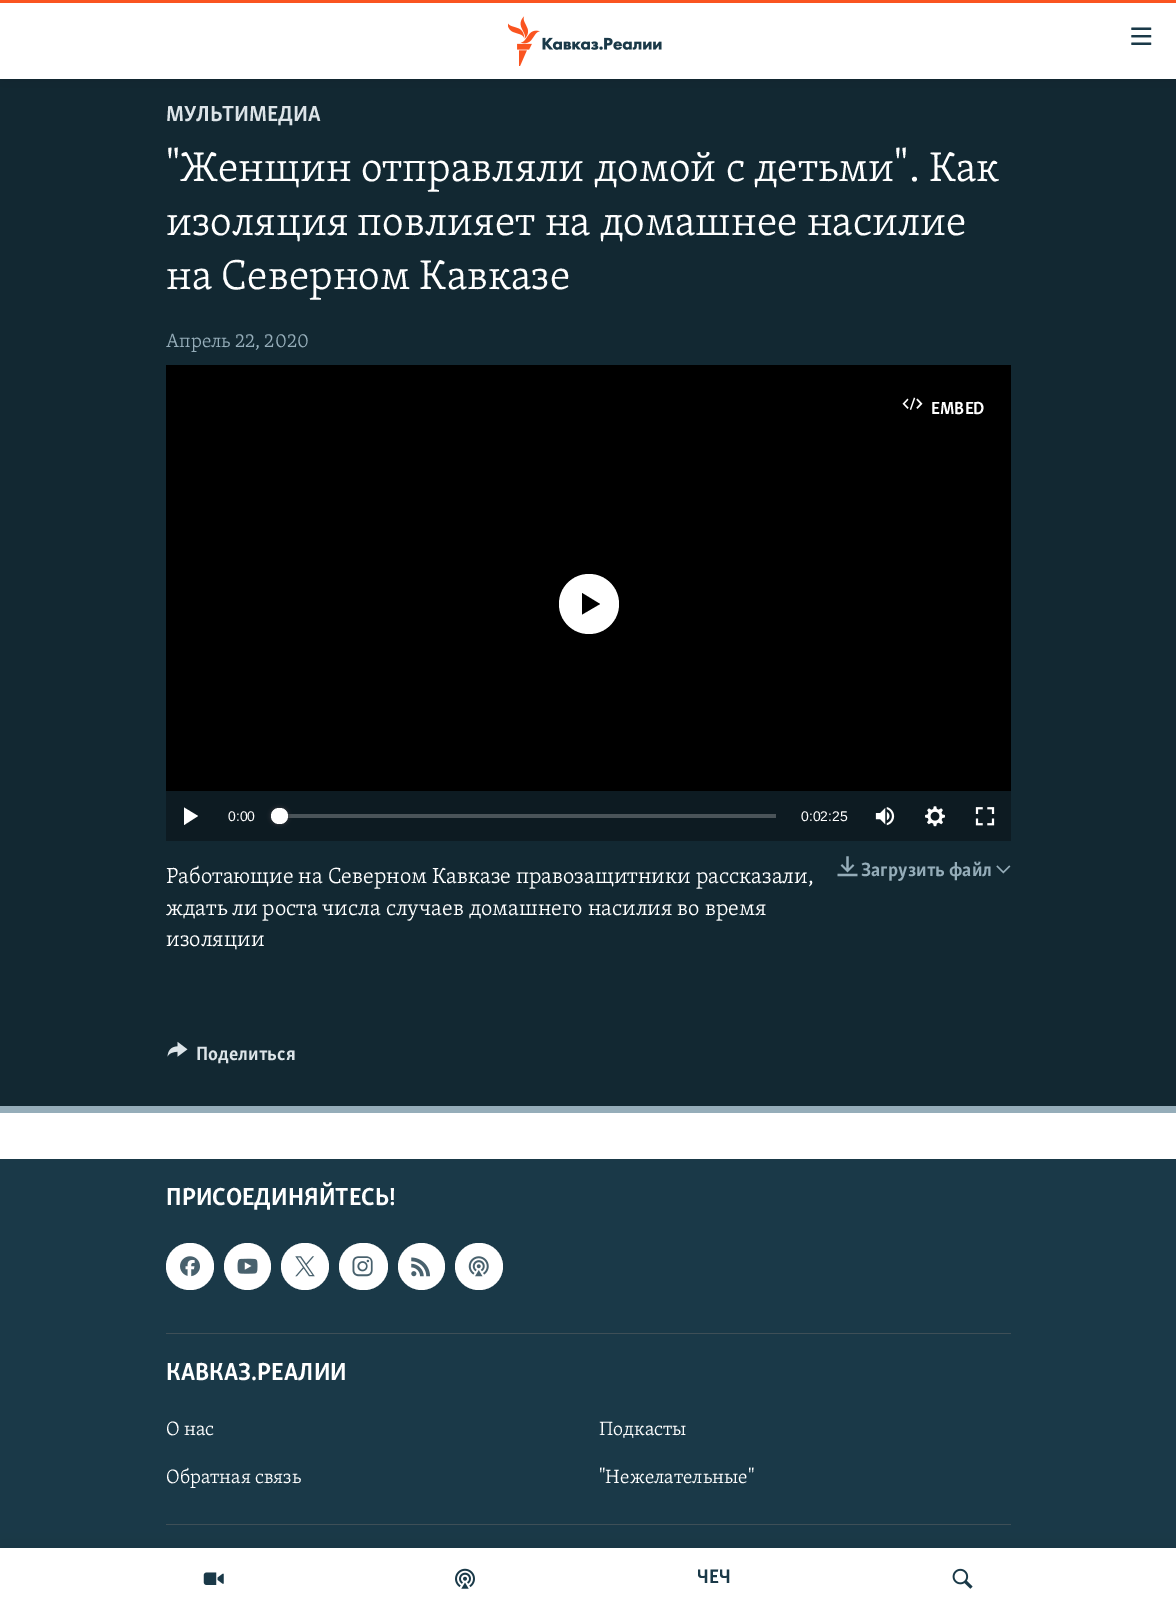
%!PS
<< /PageSize [1176 1609] /PageUsesTransparency true >> setpagedevice
/rgb { 3 { 255 div 3 1 roll } repeat setrgbcolor } def
/font { [ exch dup neg 0 0 3 -1 roll 0 0 ] selectfont } def
/alpha { dup .setfillconstantalpha .setstrokeconstantalpha } def
/circle { newpath 0 360 arc closepath } def
/roundrect { 5 dict begin { /r /h /w /y /x } { exch def } forall
  x r add y moveto x w add y 2 copy h add r arct x w add y h add x 1 index r arct
  x y h add x y r arct x y 2 copy exch w add exch r arct closepath end } def
/shadow { 12 dict begin { /a /b /q /h /w /y /x } { exch def } forall gsave /was 0 def
  9 -2 -9 { dup b mul 4 div /e exch def 1 sub .425 mul 2.718 exch exp 1 add a .99 .min exch div /now exch def
    1 1 now sub 1 was sub div sub alpha /was now def
    w h .min e 2 mul add 0 gt { x e sub y e sub w e 2 mul add h e 2 mul add
      q e add b .6 mul add w h .min 2 div e add .min 0 .max roundrect fill } if } for grestore end } def
/picture { 5 dict begin { /h /w /y /x /name } { exch def } forall
  gsave x y translate w h scale
  w h 8 [w 0 0 h 0 0] name (r) file false 3 colorimage grestore end } def
0 .pushpdf14devicefilter
0 1609 translate 1 -1 scale
4 setmiterlimit
255 255 255 rgb
0 0 1176 1609 rectfill
[
  [0 79 1176 1027 18 40 50]
  [0 1106 1176 7 149 173 185]
  [166 365 845 426 0 0 0]
] { aload pop rgb rectfill } forall
(img/1.rgb) 902 397 21 13 picture
255 255 255 rgb
589 604 30 circle fill
0 0 0 rgb
582 614.5 moveto 600 604 lineto 582 593 lineto closepath fill
13 27 34 rgb
166 791 845 50 rectfill
255 255 255 rgb
184 825 moveto 198 816 lineto 184 807.5 lineto closepath fill
74 84 89 rgb
280 814 496 4 rectfill
65 65 68 rgb
271 808 17 16 8 2 1 shadow
255 255 255 rgb
271 808 17 16 8 roundrect fill
(img/2.rgb) 875 807 20 19 picture
(img/3.rgb) 925 806 20 21 picture
(img/4.rgb) 975 807 20 19 picture
(img/5.rgb) 837 856 21 21 picture
(img/6.rgb) 996 865 15 9 picture
(img/7.rgb) 167 1041 21 16 picture
26 57 72 rgb
0 1159 1176 389 rectfill
255 255 255 rgb
166 1243 48 47 23.5 roundrect fill
(img/8.rgb) 180 1256 20 21 picture
247.5 1266.5 23.5 circle fill
(img/9.rgb) 237 1258 21 16 picture
281 1243 48 47 23.5 roundrect fill
(img/10.rgb) 295 1256 20 21 picture
339 1243 49 47 23.5 roundrect fill
(img/11.rgb) 352 1256 21 21 picture
421.5 1266.5 23.5 circle fill
(img/12.rgb) 411 1257 19 20 picture
455 1243 48 47 23.5 roundrect fill
(img/13.rgb) 468 1256 21 21 picture
62 79 87 rgb
166 1333 845 1 rectfill
166 1524 845 1 rectfill
0 0 0 rgb
0 0 1176 79 0 12.5 0.1 shadow
255 255 255 rgb
0 3 1176 76 rectfill
250 84 32 rgb
0 0 1176 3 rectfill
(img/14.rgb) 508 16 154 50 picture
(img/15.rgb) 1131 27 21 18 picture
0 0 0 rgb
0 1548 1176 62 0 12.5 0.1 shadow
255 255 255 rgb
0 1548 1176 61 rectfill
(img/16.rgb) 203 1572 21 13 picture
(img/17.rgb) 455 1568 20 21 picture
(img/18.rgb) 952 1568 21 21 picture
/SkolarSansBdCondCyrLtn-Bold 22.5 font
220 228 232 rgb
166 121 moveto (МУЛЬТИМЕДИА) show
/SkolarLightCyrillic-Light 42.75 font
255 255 255 rgb
[
  [("Женщин отправляли домой с детьми". Как) 166 181]
  [(изоляция повлияет на домашнее насилие) 166 235]
  [(на Северном Кавказе) 166 289]
] { aload pop moveto show } forall
/SkolarLightCyrillic-Light 19.75 font
149 173 185 rgb
166 347 moveto (Апрель 22, 2020) show
/SkolarSansBdCondCyrLtn-Bold 18 font
255 255 255 rgb
931 414 moveto (EMBED) show
/LiberationSans-Regular 14 font
228 821 moveto (0:00) show
801 821 moveto (0:02:25) show
/SkolarLightCyrillic-Light 22.5 font
[
  [(Работающие на Северном Кавказе правозащитники рассказали,) 166 883]
  [(ждать ли роста числа случаев домашнего насилия во время) 166 915]
  [(изоляции) 166 946]
] { aload pop moveto show } forall
/SkolarSansBdCondCyrLtn-Bold 19.75 font
149 173 185 rgb
861 876 moveto (Загрузить файл) show
220 228 232 rgb
196 1060 moveto (Поделиться) show
/SkolarSansBdCondCyrLtn-Bold 25.25 font
255 255 255 rgb
166 1205 moveto (ПРИСОЕДИНЯЙТЕСЬ!) show
166 1380 moveto (КАВКАЗ.РЕАЛИИ) show
/SkolarLightCyrillic-Light 19.75 font
[
  [(О нас) 166 1435]
  [(Подкасты) 599 1435]
  [(Обратная связь) 166 1483]
  [("Нежелательные") 599 1483]
] { aload pop moveto show } forall
/SkolarSansBdCondCyrLtn-Bold 20 font
26 57 72 rgb
697 1583 moveto (ЧЕЧ) show
.poppdf14devicefilter showpage
